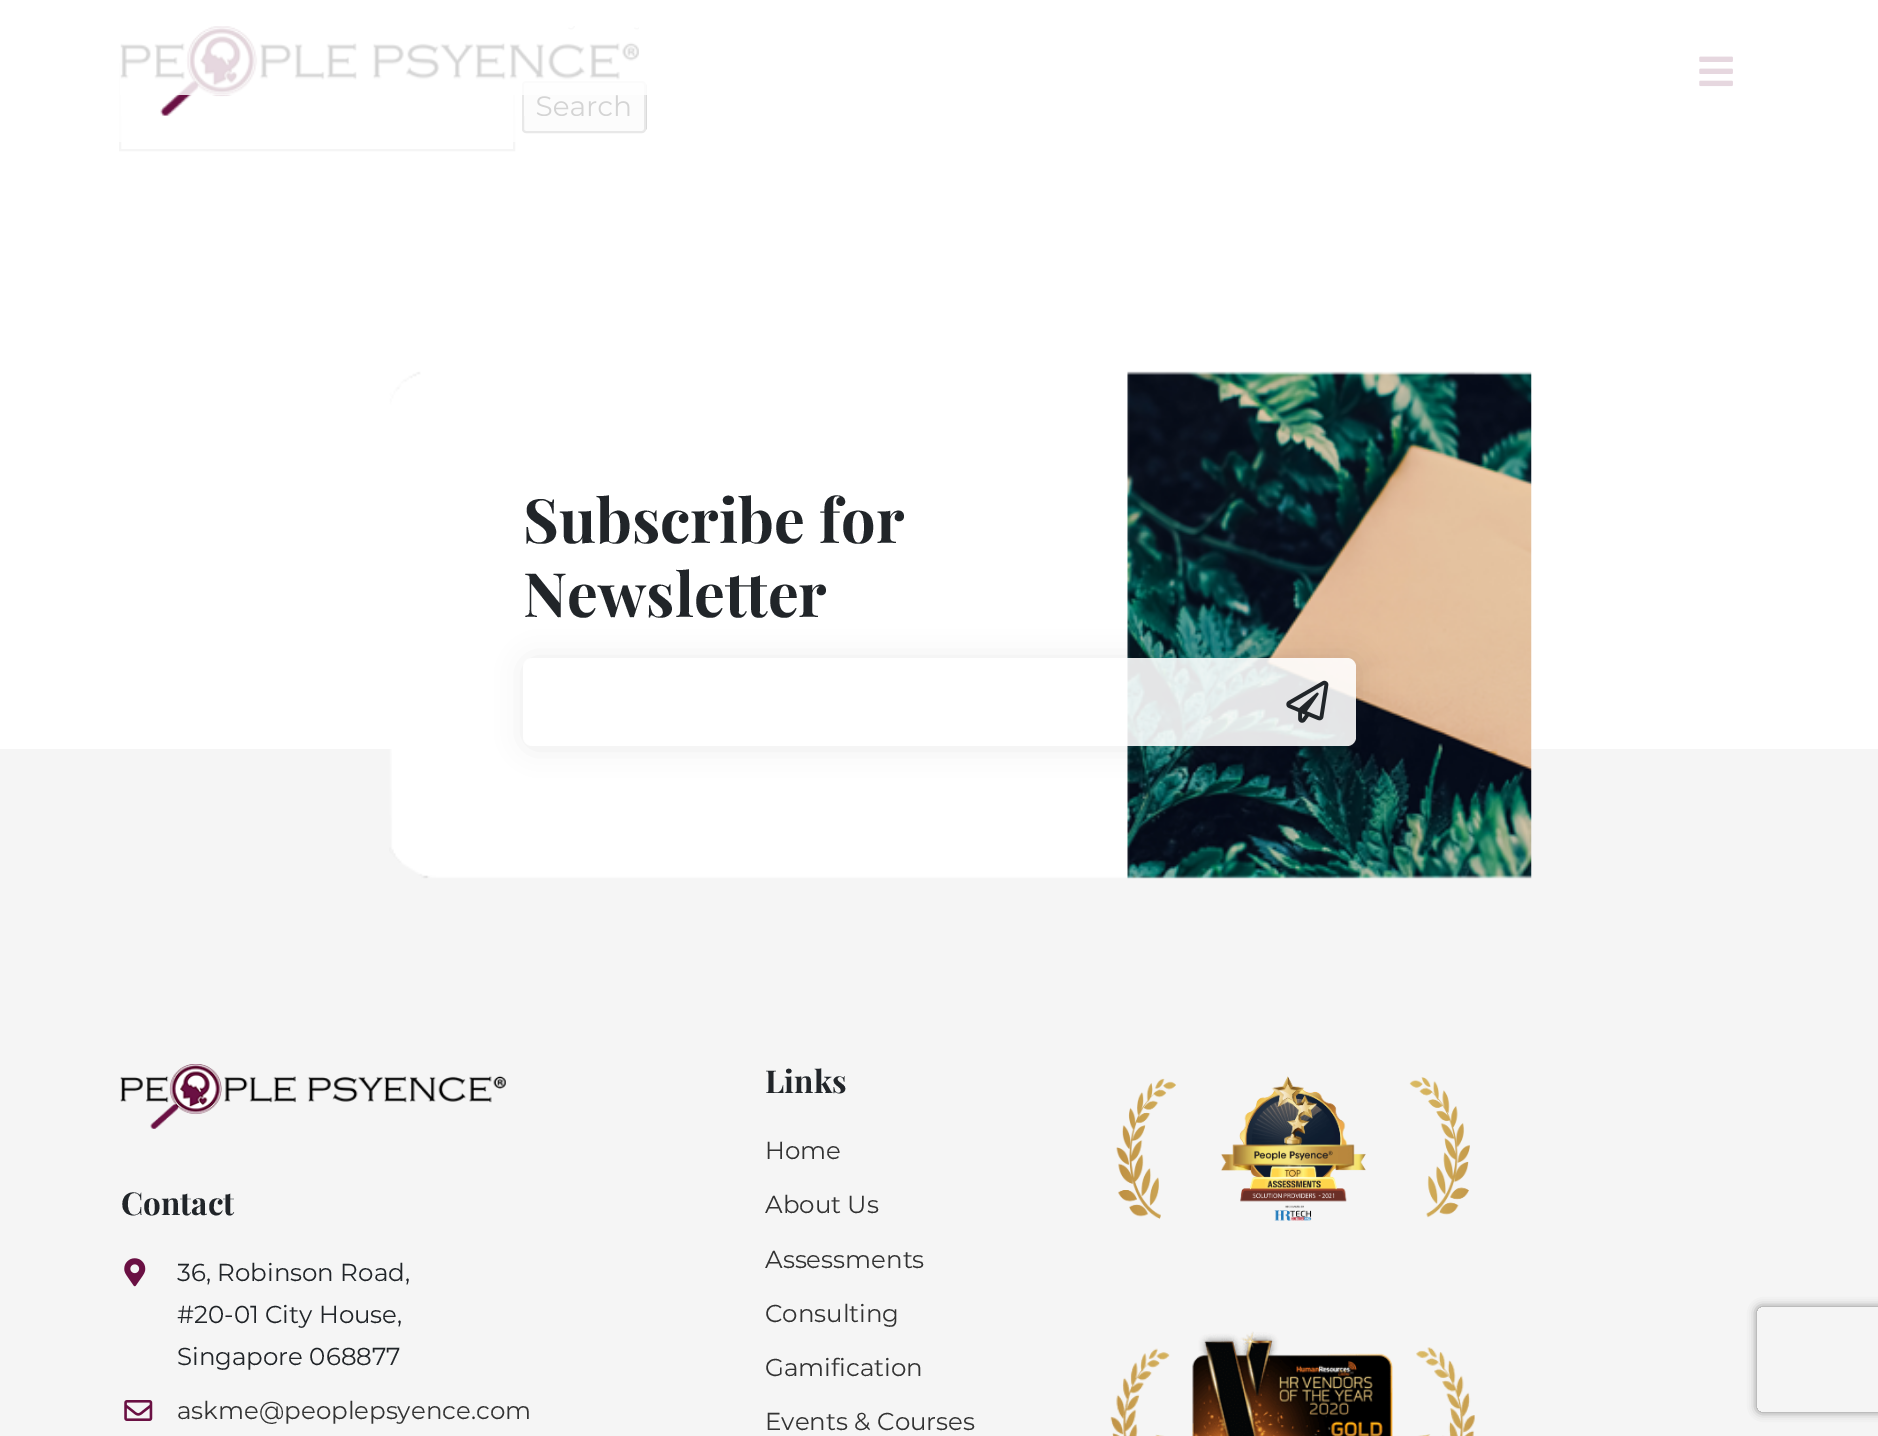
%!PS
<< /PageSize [1878 1436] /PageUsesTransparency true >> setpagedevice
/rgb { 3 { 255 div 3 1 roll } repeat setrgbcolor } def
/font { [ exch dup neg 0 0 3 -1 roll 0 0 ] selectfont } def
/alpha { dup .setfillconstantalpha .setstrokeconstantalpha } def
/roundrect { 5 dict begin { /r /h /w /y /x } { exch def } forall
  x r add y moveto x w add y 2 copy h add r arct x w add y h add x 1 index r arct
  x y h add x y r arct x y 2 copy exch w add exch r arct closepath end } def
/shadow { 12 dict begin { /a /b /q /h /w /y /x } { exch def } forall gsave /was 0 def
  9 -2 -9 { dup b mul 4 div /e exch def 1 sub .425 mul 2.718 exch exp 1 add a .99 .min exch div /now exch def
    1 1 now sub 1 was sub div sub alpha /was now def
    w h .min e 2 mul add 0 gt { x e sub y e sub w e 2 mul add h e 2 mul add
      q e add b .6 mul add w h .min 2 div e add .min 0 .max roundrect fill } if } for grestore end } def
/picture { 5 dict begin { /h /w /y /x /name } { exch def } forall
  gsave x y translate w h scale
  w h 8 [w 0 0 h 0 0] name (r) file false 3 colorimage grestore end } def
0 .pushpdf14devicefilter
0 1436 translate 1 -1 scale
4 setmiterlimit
255 255 255 rgb
0 0 1878 1436 rectfill
245 245 245 rgb
2 setlinewidth
120 64 394 86 rectstroke
239 239 239 rgb
523 82 122 50 3 roundrect gsave fill grestore
118 118 118 rgb
stroke
0.83 alpha
255 255 255 rgb
119 63 527 79 rectfill
1 alpha
(img/1.rgb) 120 26 519 90 picture
(img/2.rgb) 1699 56 34 31 picture
0.83 alpha
120 26 1613 69 rectfill
1 alpha
245 245 245 rgb
0 749 1878 687 rectfill
(img/3.rgb) 389 371 1143 508 picture
gsave
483 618 moveto 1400 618 lineto 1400 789 lineto 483 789 lineto closepath 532 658 moveto 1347 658 lineto 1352 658 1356 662 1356 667 curveto 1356 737 lineto 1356 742 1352 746 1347 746 curveto 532 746 lineto 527 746 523 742 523 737 curveto 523 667 lineto 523 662 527 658 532 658 curveto closepath eoclip newpath
0 0 0 rgb
523 658 837 91 11 13 0.07 shadow
grestore
0.89 alpha
255 255 255 rgb
523 658 833 88 9 roundrect fill
1 alpha
(img/4.rgb) 1286 680 43 43 picture
(img/5.rgb) 120 1064 386 65 picture
(img/6.rgb) 124 1258 22 29 picture
(img/7.rgb) 124 1400 29 21 picture
(img/8.rgb) 1116 1076 354 145 picture
(img/9.rgb) 1110 1331 365 105 picture
gsave
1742 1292 moveto 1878 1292 lineto 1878 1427 lineto 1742 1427 lineto closepath 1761 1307 moveto 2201 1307 lineto 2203 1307 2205 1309 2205 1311 curveto 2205 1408 lineto 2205 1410 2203 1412 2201 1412 curveto 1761 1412 lineto 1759 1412 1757 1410 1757 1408 curveto 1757 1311 lineto 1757 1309 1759 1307 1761 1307 curveto closepath eoclip newpath
128 128 128 rgb
1757 1307 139 105 4 4.5 1 shadow
grestore
/PlayfairDisplay-Bold 61.25 font
33 37 41 rgb
523 543 moveto (Subscribe for) show
523 617 moveto (Newsletter) show
/PlayfairDisplay-Bold 31.5 font
121 1215 moveto (Contact) show
/Montserrat-Regular 24.5 font
[
  [(36, Robinson Road,) 177 1281]
  [(#20-01 City House,) 177 1323]
  [(Singapore 068877) 177 1365]
] { aload pop moveto show } forall
51 51 51 rgb
177 1419 moveto (askme@peoplepsyence.com) show
/PlayfairDisplay-Bold 31.5 font
33 37 41 rgb
765 1093 moveto (Links) show
/Montserrat-Regular 24.5 font
51 51 51 rgb
[
  [(Home) 765 1159]
  [(About Us) 765 1213]
  [(Assessments) 765 1268]
  [(Consulting) 765 1322]
  [(Gamification) 765 1376]
  [(Events & Courses) 765 1430]
] { aload pop moveto show } forall
.poppdf14devicefilter showpage
